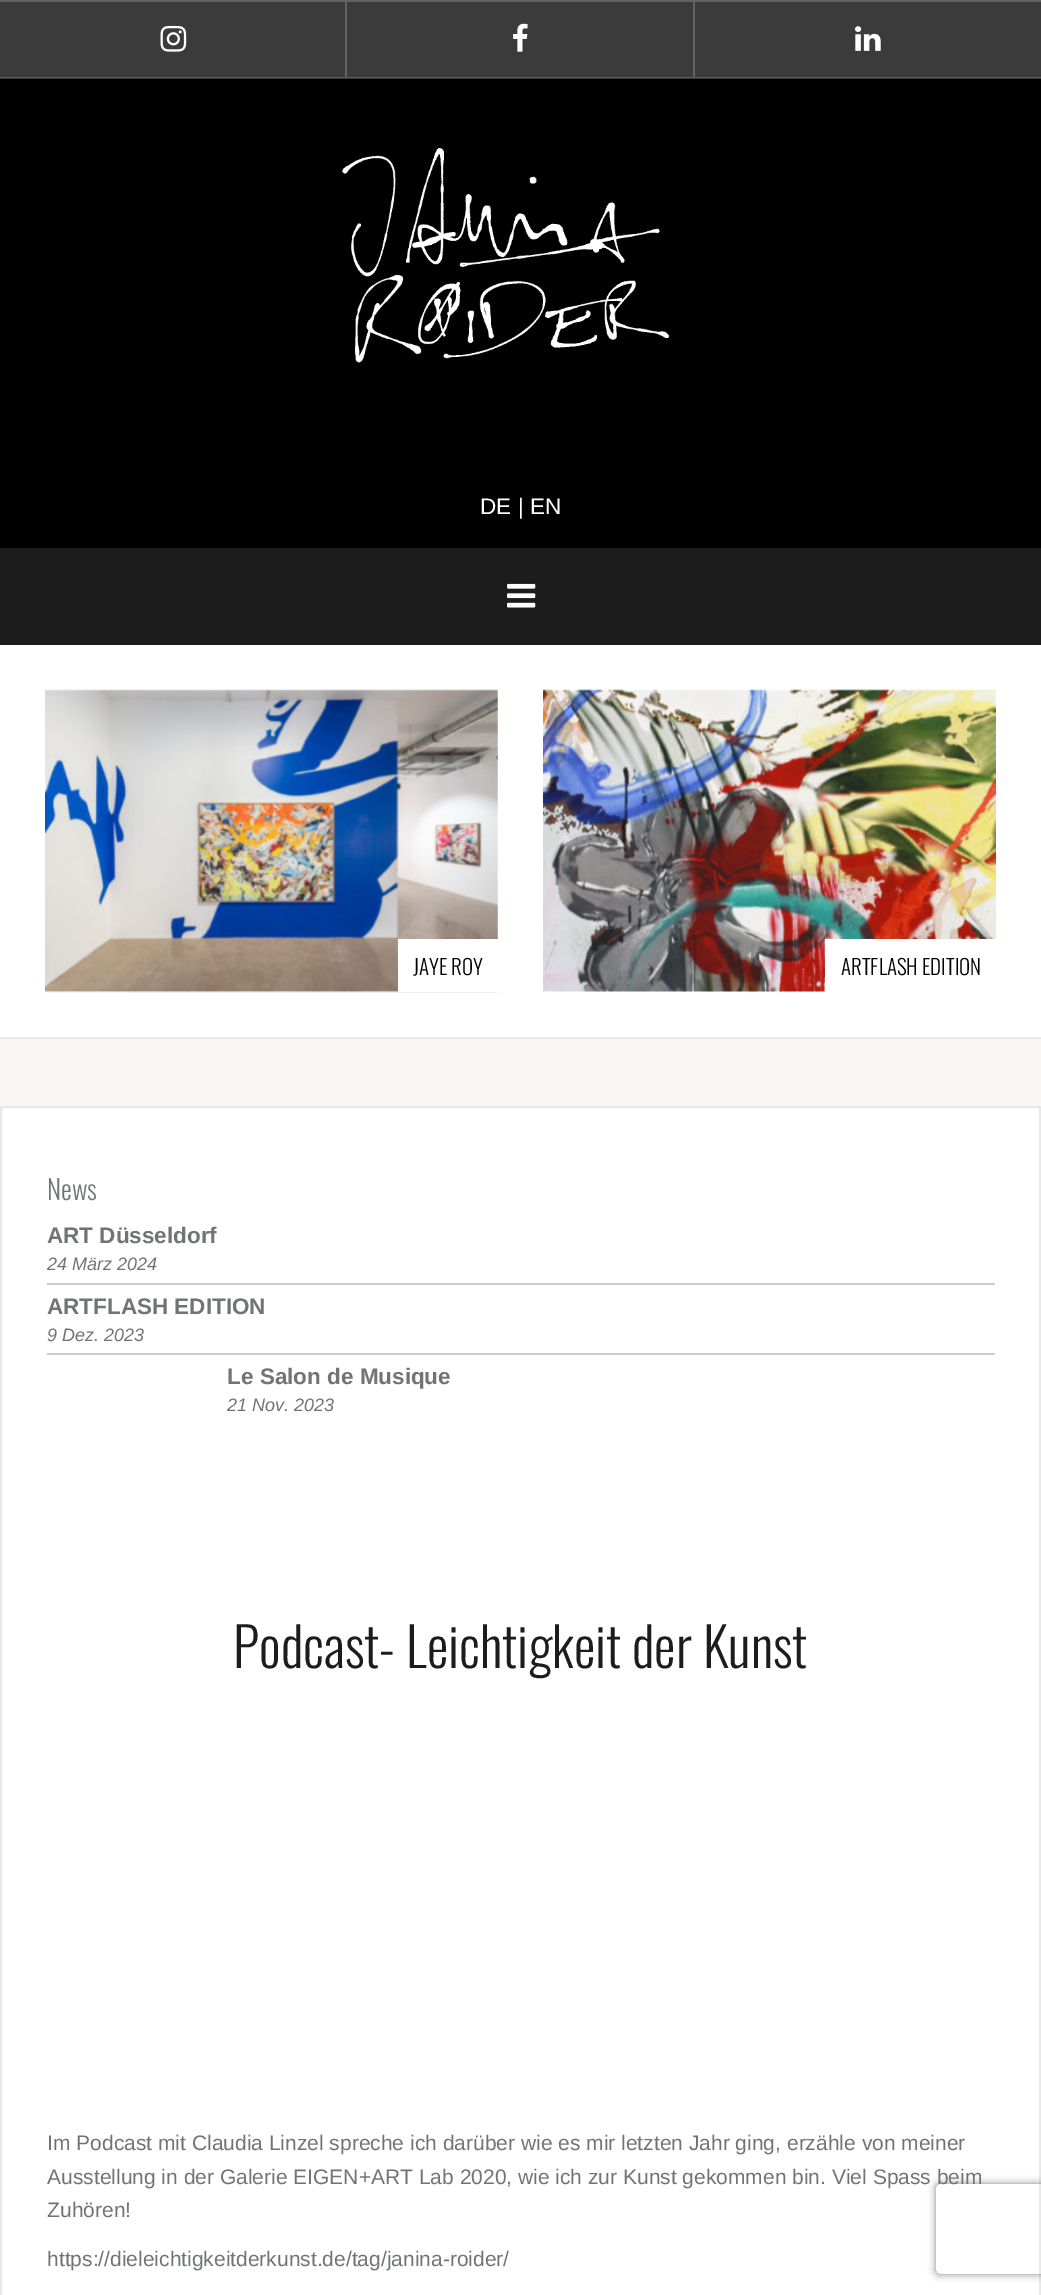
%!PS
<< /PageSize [1041 2295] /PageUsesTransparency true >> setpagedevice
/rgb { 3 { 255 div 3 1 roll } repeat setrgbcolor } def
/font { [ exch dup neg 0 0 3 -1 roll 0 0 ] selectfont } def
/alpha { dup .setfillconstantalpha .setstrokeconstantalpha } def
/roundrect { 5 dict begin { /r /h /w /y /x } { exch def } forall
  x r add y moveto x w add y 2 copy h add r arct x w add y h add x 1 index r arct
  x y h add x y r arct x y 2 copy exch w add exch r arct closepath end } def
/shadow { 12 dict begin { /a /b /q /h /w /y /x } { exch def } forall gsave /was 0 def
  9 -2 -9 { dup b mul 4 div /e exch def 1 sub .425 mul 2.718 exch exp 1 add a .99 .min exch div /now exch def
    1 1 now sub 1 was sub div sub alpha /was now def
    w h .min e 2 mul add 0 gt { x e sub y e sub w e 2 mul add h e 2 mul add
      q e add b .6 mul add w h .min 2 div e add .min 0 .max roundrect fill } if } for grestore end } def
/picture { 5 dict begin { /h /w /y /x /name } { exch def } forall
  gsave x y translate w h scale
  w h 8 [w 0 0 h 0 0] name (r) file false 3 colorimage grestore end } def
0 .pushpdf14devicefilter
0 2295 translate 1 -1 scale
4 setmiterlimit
249 246 245 rgb
0 0 1041 2295 rectfill
[
  [0 79 1041 469 0 0 0]
  [0 78 1041 1 51 51 51]
  [0 2 1041 75 59 59 59]
  [0 77 1041 1 98 98 98]
  [0 0 1041 2 98 98 98]
  [345 2 2 75 98 98 98]
] { aload pop rgb rectfill } forall
(img/1.rgb) 160 25 27 27 picture
693 2 2 75 rectfill
(img/2.rgb) 513 23 15 29 picture
(img/3.rgb) 855 26 26 25 picture
(img/4.rgb) 342 148 328 215 picture
28 28 28 rgb
0 548 1041 97 rectfill
(img/5.rgb) 507 583 29 25 picture
255 255 255 rgb
0 645 1041 392 rectfill
232 232 232 rgb
0 1037 1041 2 rectfill
(img/6.rgb) 45 689 453 304 picture
255 255 255 rgb
398 939 100 53 rectfill
(img/7.rgb) 543 689 453 303 picture
825 939 171 53 rectfill
1 1107 moveto 1040 1107 lineto 1040 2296 lineto 1 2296 lineto closepath gsave fill grestore
232 232 232 rgb
2 setlinewidth
stroke
204 204 204 rgb
47 1283 948 2 rectfill
47 1353 948 2 rectfill
gsave
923 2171 moveto 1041 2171 lineto 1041 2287 lineto 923 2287 lineto closepath 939 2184 moveto 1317 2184 lineto 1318.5 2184 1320 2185.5 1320 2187 curveto 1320 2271 lineto 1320 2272.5 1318.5 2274 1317 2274 curveto 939 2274 lineto 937.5 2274 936 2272.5 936 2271 curveto 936 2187 lineto 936 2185.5 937.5 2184 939 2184 curveto closepath eoclip newpath
128 128 128 rgb
936 2184 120 90 3 4 1 shadow
grestore
/LiberationSans-Regular 22.5 font
255 255 255 rgb
480 514 moveto (DE | EN) show
/Oswald-Light 21 font
0 0 0 rgb
413 975 moveto (JAYE ROY) show
841 975 moveto (ARTFLASH EDITION) show
/Oswald-Light 27 font
113 115 118 rgb
47 1200 moveto (News) show
/LiberationSans-Bold 22.5 font
47 1243 moveto (ART Düsseldorf) show
/LiberationSans-Italic 18 font
47 1270 moveto (24 März 2024) show
/LiberationSans-Bold 22.5 font
47 1314 moveto (ARTFLASH EDITION) show
/LiberationSans-Italic 18 font
47 1341 moveto (9 Dez. 2023) show
/LiberationSans-Bold 22.5 font
227 1384 moveto (Le Salon de Musique) show
/LiberationSans-Italic 18 font
227 1411 moveto (21 Nov. 2023) show
/Oswald-Light 54 font
28 28 28 rgb
233 1668 moveto (Podcast- Leichtigkeit der Kunst) show
/LiberationSans-Regular 21 font
113 115 118 rgb
[
  [(Im Podcast mit Claudia Linzel spreche ich darüber wie es mir letzten Jahr ging, erzähle von meiner) 47 2150]
  [(Ausstellung in der Galerie EIGEN+ART Lab 2020, wie ich zur Kunst gekommen bin. Viel Spass beim) 47 2184]
  [(Zuhören!) 47 2217]
  [(https://dieleichtigkeitderkunst.de/tag/janina-roider/) 47 2266]
] { aload pop moveto show } forall
.poppdf14devicefilter showpage
